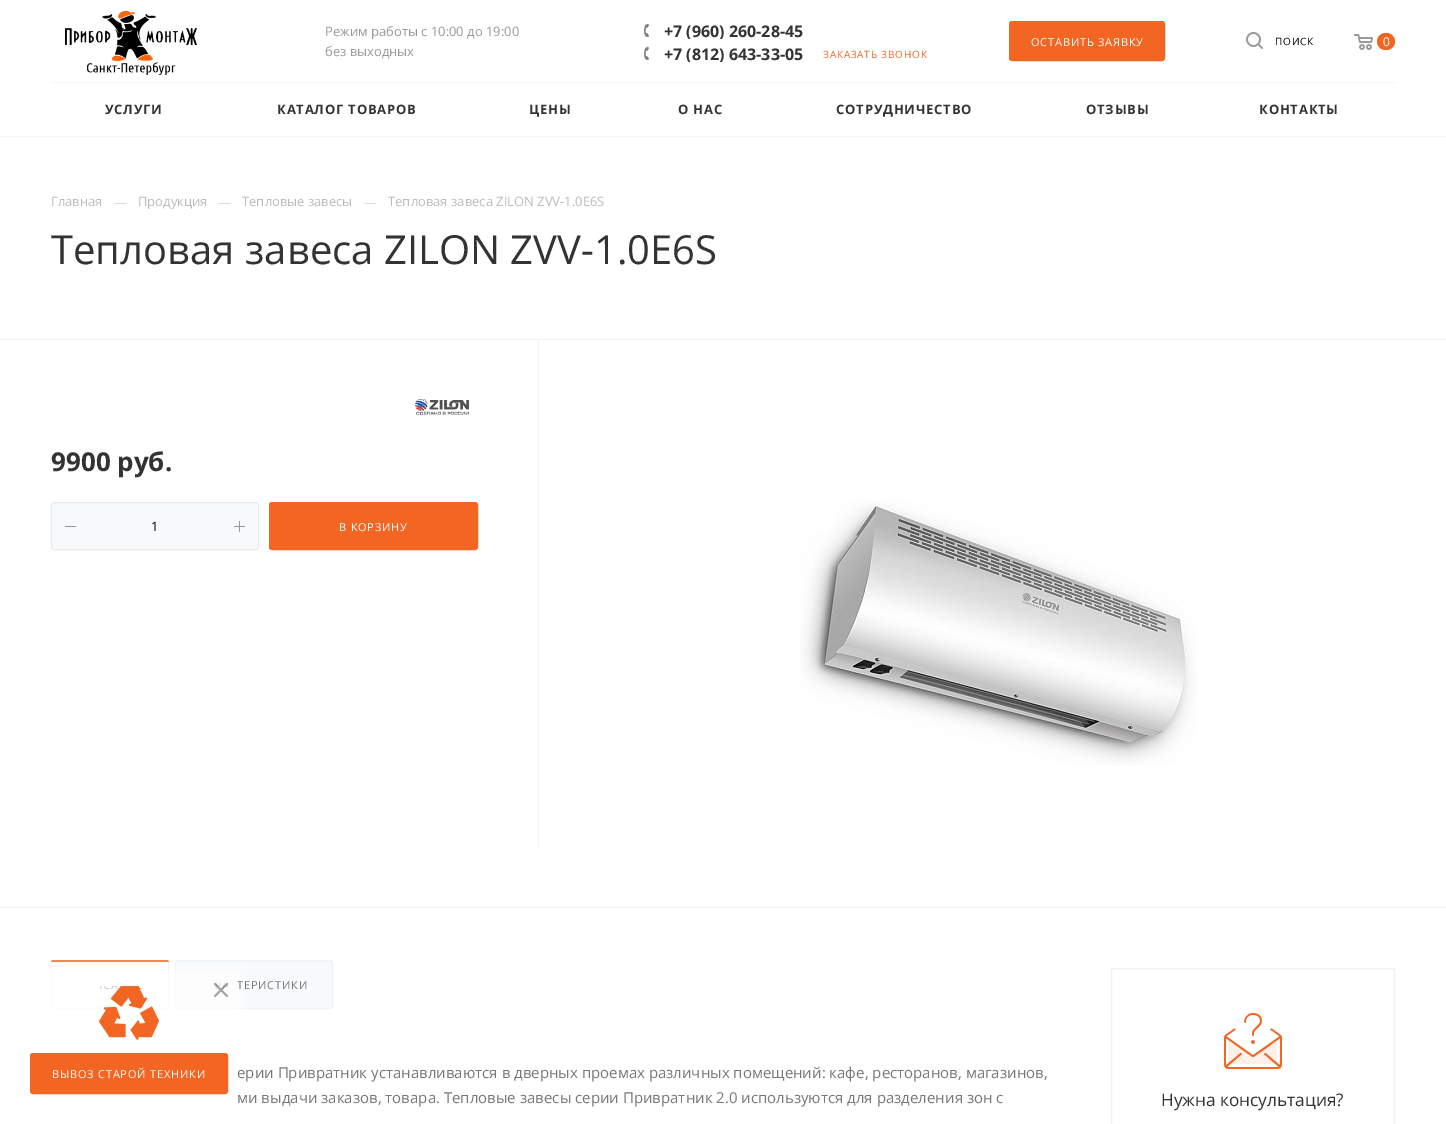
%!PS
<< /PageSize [1446 1124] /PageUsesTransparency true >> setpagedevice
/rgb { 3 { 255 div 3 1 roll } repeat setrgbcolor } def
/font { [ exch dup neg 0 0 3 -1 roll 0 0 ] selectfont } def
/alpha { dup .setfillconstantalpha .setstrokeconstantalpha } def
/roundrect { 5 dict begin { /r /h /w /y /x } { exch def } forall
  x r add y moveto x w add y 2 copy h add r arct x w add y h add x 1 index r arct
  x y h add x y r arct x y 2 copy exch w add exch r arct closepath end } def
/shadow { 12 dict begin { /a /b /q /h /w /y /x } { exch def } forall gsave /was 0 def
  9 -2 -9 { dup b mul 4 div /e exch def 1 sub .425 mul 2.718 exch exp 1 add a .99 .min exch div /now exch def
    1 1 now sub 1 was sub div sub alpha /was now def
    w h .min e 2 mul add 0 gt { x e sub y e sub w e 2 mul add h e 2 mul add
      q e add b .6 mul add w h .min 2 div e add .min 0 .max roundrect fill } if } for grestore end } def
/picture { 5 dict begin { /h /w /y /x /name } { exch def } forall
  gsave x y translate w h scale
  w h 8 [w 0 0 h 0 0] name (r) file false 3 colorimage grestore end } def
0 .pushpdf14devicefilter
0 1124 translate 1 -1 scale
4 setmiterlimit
255 255 255 rgb
0 0 1446 1124 rectfill
245 245 245 rgb
0 136 1446 1 rectfill
51 82 1344 1 rectfill
(img/1.rgb) 65 11 132 64 picture
(img/2.rgb) 644 24 5 13 picture
(img/2.rgb) 644 47 5 13 picture
242 101 34 rgb
1009.5 21.5 155 39 2.5 roundrect gsave fill grestore
stroke
(img/3.rgb) 1246 32 17 17 picture
(img/4.rgb) 1354 34 19 16 picture
1377 33 18 17 8.5 roundrect fill
243 243 243 rgb
0 339 1446 1 rectfill
0 907 1446 1 rectfill
(img/5.rgb) 415 399 55 17 picture
248 249 251 rgb
51.5 502.5 207 47 2.5 roundrect gsave fill grestore
234 234 234 rgb
stroke
150 150 151 rgb
65 526 11 1 0.5 roundrect fill
(img/6.rgb) 234 521 11 11 picture
242 101 34 rgb
269.5 502.5 208 47 2.5 roundrect gsave fill grestore
stroke
243 243 243 rgb
538 340 1 507 rectfill
(img/7.rgb) 800 500 397 266 picture
248 249 251 rgb
51.5 960.5 117 48 2.5 roundrect gsave fill grestore
239 241 245 rgb
stroke
255 255 255 rgb
52 961 116 47 3 roundrect fill
242 101 34 rgb
53 960 moveto 167 960 lineto 168 960 169 961 169 962 curveto 51 962 lineto 51 961 52 960 53 960 curveto closepath fill
248 249 251 rgb
175.5 960.5 157 48 2.5 roundrect gsave fill grestore
239 241 245 rgb
stroke
1111.5 968.5 283 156 rectstroke
242 101 34 rgb
1224 1013 58 56 rectfill
(img/8.rgb) 1224 1013 58 56 picture
gsave
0 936 moveto 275 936 lineto 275 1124 lineto 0 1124 lineto closepath 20 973 moveto 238 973 lineto 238 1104 lineto 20 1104 lineto closepath eoclip newpath
255 255 255 rgb
14 967 230 143 0 10 0.7 shadow
grestore
/OpenSans-Regular 13 font
153 153 153 rgb
325 36 moveto (Режим работы с 10:00 до 19:00) show
325 56 moveto (без выходных) show
gsave
664 24 139 15 rectclip
/OpenSans-Bold 16 font
51 51 51 rgb
664 37 moveto (+7 \(960\) 260-28-45) show
grestore
gsave
664 47 139 15 rectclip
/OpenSans-Bold 16 font
51 51 51 rgb
664 60 moveto (+7 \(812\) 643-33-05) show
grestore
/OpenSans-Regular 10 font
242 101 34 rgb
823 58 moveto 0.8 0 (ЗАКАЗАТЬ ЗВОНОК) ashow
/OpenSans-Regular 11 font
255 255 255 rgb
1031 46 moveto 0.8 0 (ОСТАВИТЬ ЗАЯВКУ) ashow
/OpenSans-Regular 10 font
0 0 0 rgb
1275 45 moveto 0.8 0 (ПОИСК) ashow
/OpenSans-Regular 12 font
255 255 255 rgb
1383 46 moveto (0) show
/OpenSans-Bold 13 font
51 51 51 rgb
105 114 moveto 0.8 0 (УСЛУГИ) ashow
277 114 moveto 0.8 0 (КАТАЛОГ ТОВАРОВ) ashow
529 114 moveto 0.8 0 (ЦЕНЫ) ashow
678 114 moveto 0.8 0 (О НАС) ashow
836 114 moveto 0.8 0 (СОТРУДНИЧЕСТВО) ashow
1086 114 moveto 0.8 0 (ОТЗЫВЫ) ashow
1259 114 moveto 0.8 0 (КОНТАКТЫ) ashow
/OpenSans-Regular 13 font
187 187 187 rgb
51 206 moveto (Главная) show
221 221 221 rgb
114 207 moveto (—) show
187 187 187 rgb
138 206 moveto (Продукция) show
221 221 221 rgb
218 207 moveto (—) show
187 187 187 rgb
242 206 moveto (Тепловые завесы) show
221 221 221 rgb
364 207 moveto (—) show
187 187 187 rgb
388 206 moveto (Тепловая завеса ZILON ZVV-1.0E6S) show
/OpenSans-Regular 40 font
51 51 51 rgb
51 264 moveto (Тепловая завеса ZILON ZVV-1.0E6S) show
/OpenSans-Bold 26 font
51 471 moveto (9900 руб.) show
/OpenSans-Regular 13 font
0 0 0 rgb
151 531 moveto (1) show
/OpenSans-Regular 11 font
255 255 255 rgb
339 531 moveto 0.8 0 (В КОРЗИНУ) ashow
119 119 119 rgb
237 989 moveto 0.8 0 (ТЕРИСТИКИ) ashow
/OpenSans-Regular 15 font
237 1078 moveto (ерии Привратник устанавливаются в дверных проемах различных помещений: кафе, ресторанов, магазинов,) show
237 1103 moveto (ми выдачи заказов, товара. Тепловые завесы серии Привратник 2.0 используются для разделения зон с) show
/OpenSans-Regular 17.25 font
51 51 51 rgb
1161 1106 moveto (Нужна консультация?) show
0.7 alpha
255 255 255 rgb
51 973 187 130 rectfill
1 alpha
(img/9.rgb) 99 986 60 54 picture
(img/10.rgb) 214 983 14 14 picture
(img/11.rgb) 214 983 14 14 picture
242 101 34 rgb
30.5 1053.5 197 40 2.5 roundrect gsave fill grestore
stroke
/OpenSans-Regular 11 font
255 255 255 rgb
52 1078 moveto 0.8 0 (ВЫВОЗ СТАРОЙ ТЕХНИКИ) ashow
.poppdf14devicefilter showpage
